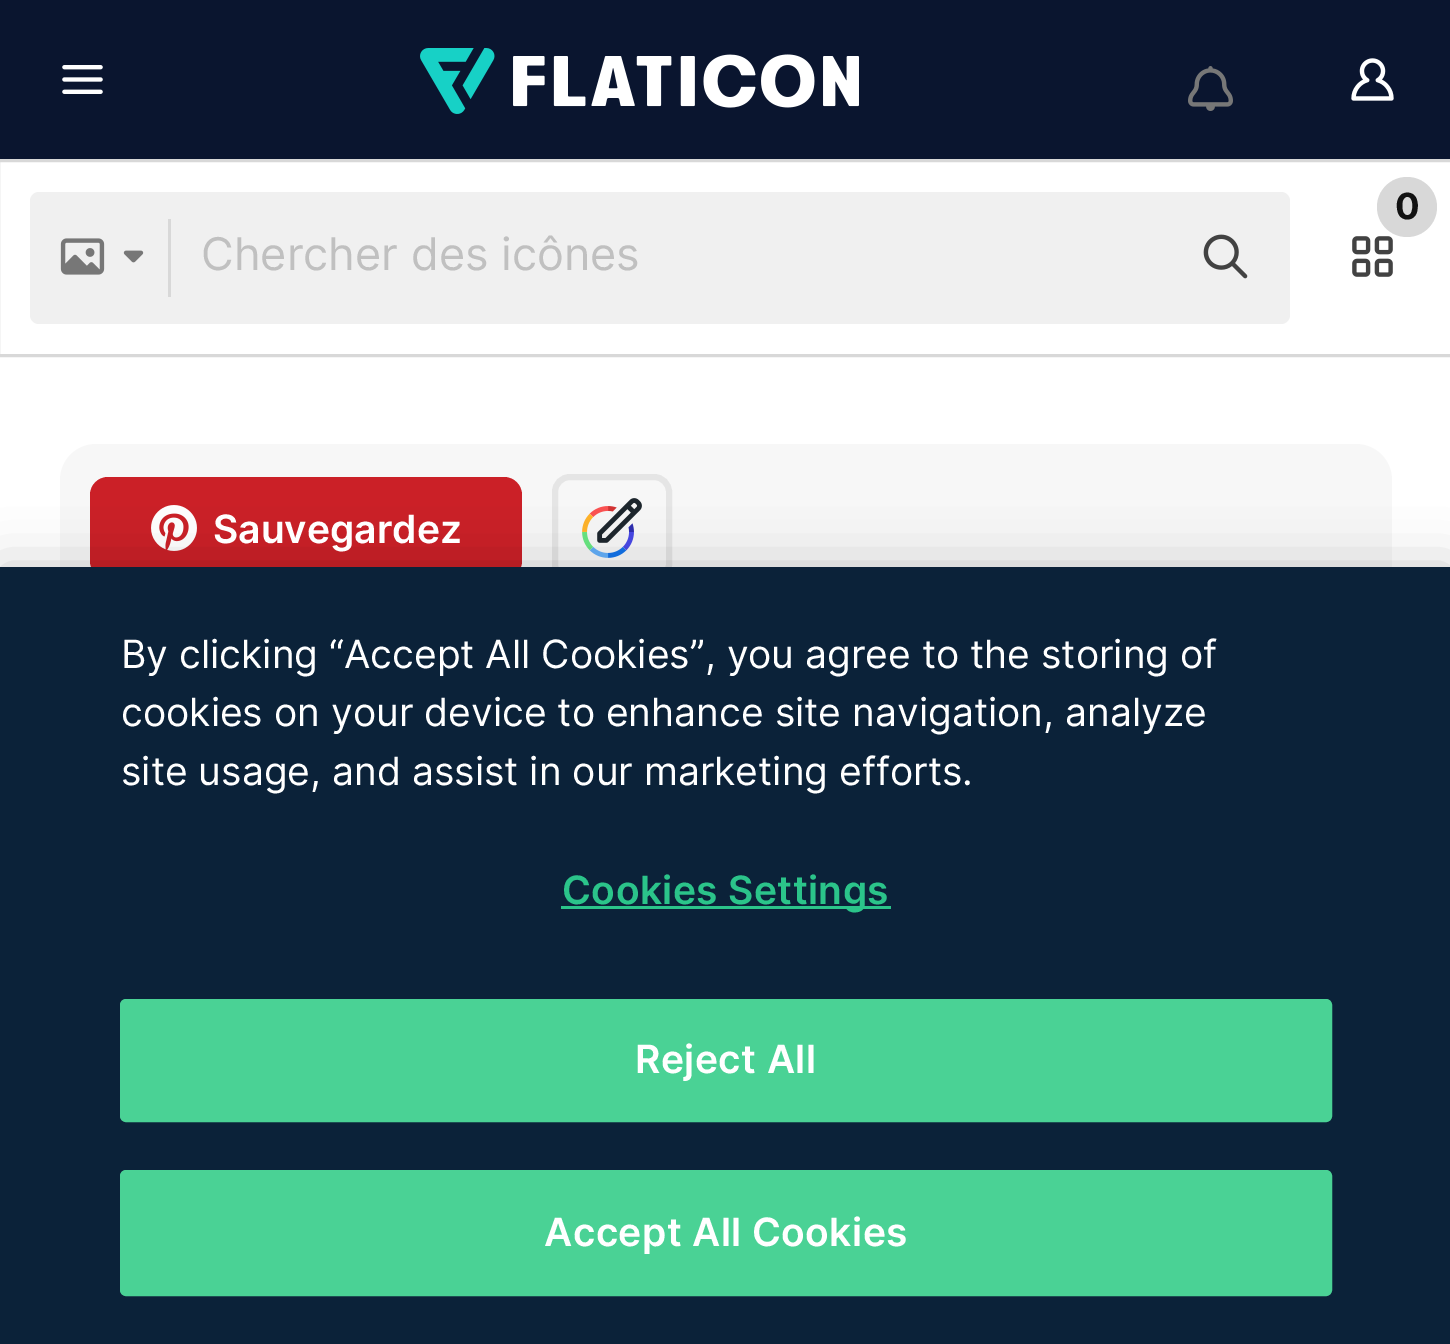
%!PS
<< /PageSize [1450 1344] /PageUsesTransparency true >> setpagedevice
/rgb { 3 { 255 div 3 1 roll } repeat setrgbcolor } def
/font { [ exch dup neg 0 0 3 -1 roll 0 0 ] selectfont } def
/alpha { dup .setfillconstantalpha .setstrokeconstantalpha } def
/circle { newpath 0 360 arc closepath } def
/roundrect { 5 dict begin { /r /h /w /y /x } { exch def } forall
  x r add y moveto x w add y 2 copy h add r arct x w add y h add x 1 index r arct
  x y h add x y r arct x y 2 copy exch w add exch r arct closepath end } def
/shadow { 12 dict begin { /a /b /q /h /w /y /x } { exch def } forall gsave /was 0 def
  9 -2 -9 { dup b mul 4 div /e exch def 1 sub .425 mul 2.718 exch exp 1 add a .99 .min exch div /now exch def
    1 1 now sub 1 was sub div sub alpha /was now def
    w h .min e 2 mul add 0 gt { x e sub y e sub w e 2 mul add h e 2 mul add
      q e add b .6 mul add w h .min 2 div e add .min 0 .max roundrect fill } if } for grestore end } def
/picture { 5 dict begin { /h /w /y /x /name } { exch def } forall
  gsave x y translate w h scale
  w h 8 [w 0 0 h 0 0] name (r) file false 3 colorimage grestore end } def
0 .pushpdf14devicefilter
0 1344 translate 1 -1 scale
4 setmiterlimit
255 255 255 rgb
0 0 1450 1344 rectfill
10 21 47 rgb
0 0 1450 159 rectfill
(img/1.rgb) 62 65 41 29 picture
(img/2.rgb) 420 48 439 66 picture
(img/3.rgb) 1188 66 45 45 picture
(img/4.rgb) 1351 58 43 43 picture
216 216 216 rgb
3 setlinewidth
-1.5 160.5 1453 195 rectstroke
(img/5.rgb) 1352 236 41 41 picture
1407 207 30 circle fill
240 240 240 rgb
30 192 1260 132 9 roundrect fill
(img/6.rgb) 60 238 45 37 picture
(img/7.rgb) 123 250 21 13 picture
216 216 216 rgb
168 219 3 78 rectfill
(img/8.rgb) 1203 234 45 45 picture
247 247 247 rgb
60 444 1332 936 36 roundrect fill
203 32 39 rgb
90 477 432 102 18 roundrect fill
(img/9.rgb) 151 505 46 46 picture
229 229 229 rgb
6 setlinewidth
555 477 114 102 15 roundrect stroke
(img/10.rgb) 582 498 60 60 picture
0 0 0 rgb
0 567 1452 777 0 27 0.2 shadow
11 34 57 rgb
0 567 1450 777 rectfill
43 196 138 rgb
561 906 330 3 rectfill
74 210 149 rgb
121.5 1000.5 1209 120 4.5 roundrect gsave fill grestore
3 setlinewidth
stroke
121.5 1171.5 1209 123 4.5 roundrect gsave fill grestore
stroke
/Inter-Bold 36 font
18 18 18 rgb
1395 219 moveto (0) show
/Inter-Regular 45 font
192 192 192 rgb
201 270 moveto (Chercher des icônes) show
/Inter-SemiBold 39 font
255 255 255 rgb
213 543 moveto (Sauvegardez) show
/Inter-Regular 39 font
[
  [(By clicking “Accept All Cookies”, you agree to the storing of) 121 668]
  [(cookies on your device to enhance site navigation, analyze) 121 726]
  [(site usage, and assist in our marketing efforts.) 121 785]
] { aload pop moveto show } forall
/Inter-SemiBold 39 font
43 196 138 rgb
562 904 moveto 0.4 0 (Cookies Settings) ashow
255 255 255 rgb
635 1073 moveto 0.4 0 (Reject All) ashow
544 1246 moveto 0.4 0 (Accept All Cookies) ashow
.poppdf14devicefilter showpage
